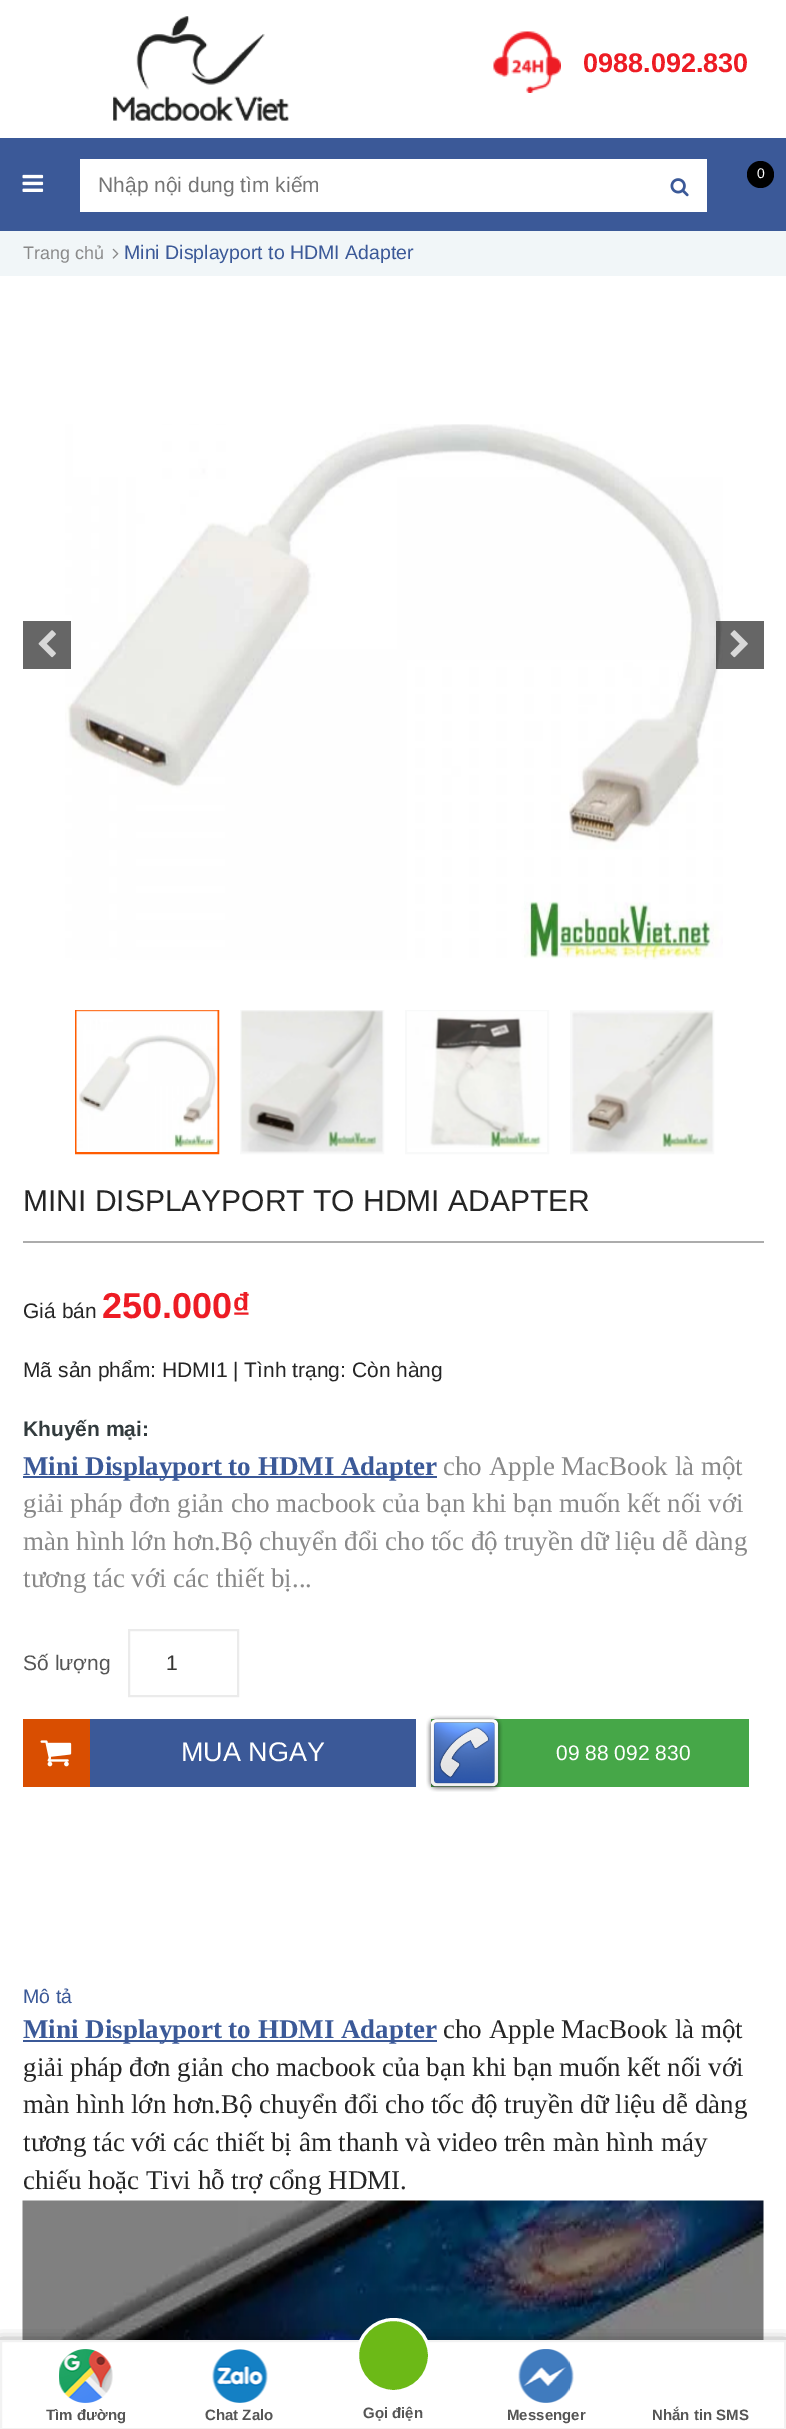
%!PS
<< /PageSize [786 2429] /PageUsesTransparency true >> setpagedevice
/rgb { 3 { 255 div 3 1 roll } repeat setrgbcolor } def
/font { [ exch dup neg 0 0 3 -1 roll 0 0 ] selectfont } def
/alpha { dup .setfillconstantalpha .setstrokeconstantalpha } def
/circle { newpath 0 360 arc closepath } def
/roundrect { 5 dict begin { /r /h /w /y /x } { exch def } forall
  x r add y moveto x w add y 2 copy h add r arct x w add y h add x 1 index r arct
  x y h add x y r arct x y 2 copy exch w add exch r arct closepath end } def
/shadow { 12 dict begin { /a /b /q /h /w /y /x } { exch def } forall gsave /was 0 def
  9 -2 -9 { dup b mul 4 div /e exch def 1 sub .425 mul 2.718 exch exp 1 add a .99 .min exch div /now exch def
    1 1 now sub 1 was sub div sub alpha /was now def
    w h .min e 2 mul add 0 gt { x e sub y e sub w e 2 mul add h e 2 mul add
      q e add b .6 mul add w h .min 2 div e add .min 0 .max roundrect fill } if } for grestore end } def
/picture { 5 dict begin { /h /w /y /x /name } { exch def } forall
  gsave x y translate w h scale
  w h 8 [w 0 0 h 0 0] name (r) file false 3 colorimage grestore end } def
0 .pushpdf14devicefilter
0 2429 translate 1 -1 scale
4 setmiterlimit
255 255 255 rgb
0 0 786 2429 rectfill
(img/1.rgb) 113 16 176 105 picture
(img/2.rgb) 493 31 68 62 picture
59 89 152 rgb
0 138 786 93 rectfill
(img/3.rgb) 22 174 22 18 picture
255 255 255 rgb
80 159 627 53 rectfill
(img/4.rgb) 670 178 19 19 picture
0 0 0 rgb
760.5 174.5 13.5 circle fill
241 246 248 rgb
0 231 786 45 rectfill
(img/5.rgb) 112 248 7 11 picture
(img/6.rgb) 65 424 658 536 picture
102 102 102 rgb
23 621 48 48 rectfill
(img/7.rgb) 38 630 18 28 picture
0.6 alpha
0 0 0 rgb
716 621 48 48 rectfill
1 alpha
(img/8.rgb) 730 630 18 28 picture
255 92 1 rgb
2 setlinewidth
76 1011 142 142 rectstroke
(img/9.rgb) 76 1010 142 142 picture
248 249 249 rgb
241 1011 142 142 rectstroke
(img/10.rgb) 241 1010 142 143 picture
406 1011 142 142 rectstroke
(img/11.rgb) 407 1011 140 137 picture
571 1011 142 142 rectstroke
(img/12.rgb) 572 1011 141 142 picture
172 172 172 rgb
23 1241 741 2 rectfill
59 89 152 rgb
23 1476 414 2 rectfill
235 235 235 rgb
129 1630 109 66 rectstroke
59 89 152 rgb
90 1719 326 68 rectfill
217 78 1 rgb
23 1719 67 68 rectfill
(img/13.rgb) 40 1740 32 27 picture
70 167 72 rgb
431 1719 318 68 rectfill
(img/14.rgb) 426 1715 77 77 picture
59 89 152 rgb
23 2040 414 2 rectfill
(img/15.rgb) 22 2200 742 140 picture
0 0 0 rgb
0 2346 786 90 0 7.5 1 shadow
255 255 255 rgb
1 2341 moveto 785 2341 lineto 785 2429 lineto 1 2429 lineto closepath gsave fill grestore
242 242 242 rgb
stroke
(img/16.rgb) 59 2349 54 54 picture
(img/17.rgb) 212 2349 56 54 picture
108 185 23 rgb
393.5 2355.5 36 circle gsave fill grestore
255 255 255 rgb
3 setlinewidth
stroke
(img/18.rgb) 518 2349 56 54 picture
/LiberationSans-Bold 27 font
237 28 36 rgb
583 72 moveto (0988.092.830) show
/LiberationSans-Regular 21 font
117 117 117 rgb
98 192 moveto (Nhập nội dung tìm kiếm) show
/LiberationSans-Regular 14 font
255 255 255 rgb
757 178 moveto (0) show
/LiberationSans-Regular 18 font
137 137 137 rgb
23 259 moveto (Trang chủ) show
/LiberationSans-Regular 19.5 font
59 89 152 rgb
124 259 moveto (Mini Displayport to HDMI Adapter) show
/LiberationSans-Regular 30 font
37 37 37 rgb
23 1211 moveto (MINI DISPLAYPORT TO HDMI ADAPTER) show
/LiberationSans-Regular 21 font
23 1318 moveto (Giá bán) show
/LiberationSans-Bold 36 font
237 28 36 rgb
102 1318 moveto (250.000₫) show
/LiberationSans-Regular 21 font
37 37 37 rgb
23 1377 moveto (Mã sản phẩm: HDMI1 | Tình trạng: Còn hàng) show
/LiberationSans-Bold 21 font
50 59 61 rgb
23 1436 moveto (Khuyến mại:) show
/LiberationSerif-Bold 27 font
59 89 152 rgb
23 1475 moveto (Mini Displayport to HDMI Adapter) show
/LiberationSerif-Regular 27 font
137 137 137 rgb
[
  [(cho Apple MacBook là một) 443 1475]
  [(giải pháp đơn giản cho macbook của bạn khi bạn muốn kết nối với) 23 1512]
  [(màn hình lớn hơn.Bộ chuyển đổi cho tốc độ truyền dữ liệu dễ dàng) 23 1550]
  [(tương tác với các thiết bị...) 23 1587]
] { aload pop moveto show } forall
/LiberationSans-Regular 21 font
85 85 85 rgb
23 1670 moveto (Số lượng) show
54 53 51 rgb
166 1670 moveto (1) show
/LiberationSans-Regular 27 font
255 255 255 rgb
181 1761 moveto (MUA NGAY) show
/LiberationSans-Regular 21 font
556 1760 moveto (09 88 092 830) show
/LiberationSans-Regular 19.5 font
59 89 152 rgb
23 2003 moveto (Mô tả) show
/LiberationSerif-Bold 27 font
23 2038 moveto (Mini Displayport to HDMI Adapter) show
/LiberationSerif-Regular 27 font
37 37 37 rgb
[
  [(cho Apple MacBook là một) 443 2038]
  [(giải pháp đơn giản cho macbook của bạn khi bạn muốn kết nối với) 23 2076]
  [(màn hình lớn hơn.Bộ chuyển đổi cho tốc độ truyền dữ liệu dễ dàng) 23 2113]
  [(tương tác với các thiết bị âm thanh và video trên màn hình máy) 23 2151]
  [(chiếu hoặc Tivi hỗ trợ cổng HDMI.) 23 2189]
] { aload pop moveto show } forall
/LiberationSans-Bold 15 font
85 85 85 rgb
[
  [(Tìm đường) 46 2420]
  [(Chat Zalo) 205 2420]
  [(Gọi điện) 363 2418]
  [(Messenger) 507 2420]
  [(Nhắn tin SMS) 652 2420]
] { aload pop moveto show } forall
.poppdf14devicefilter showpage
